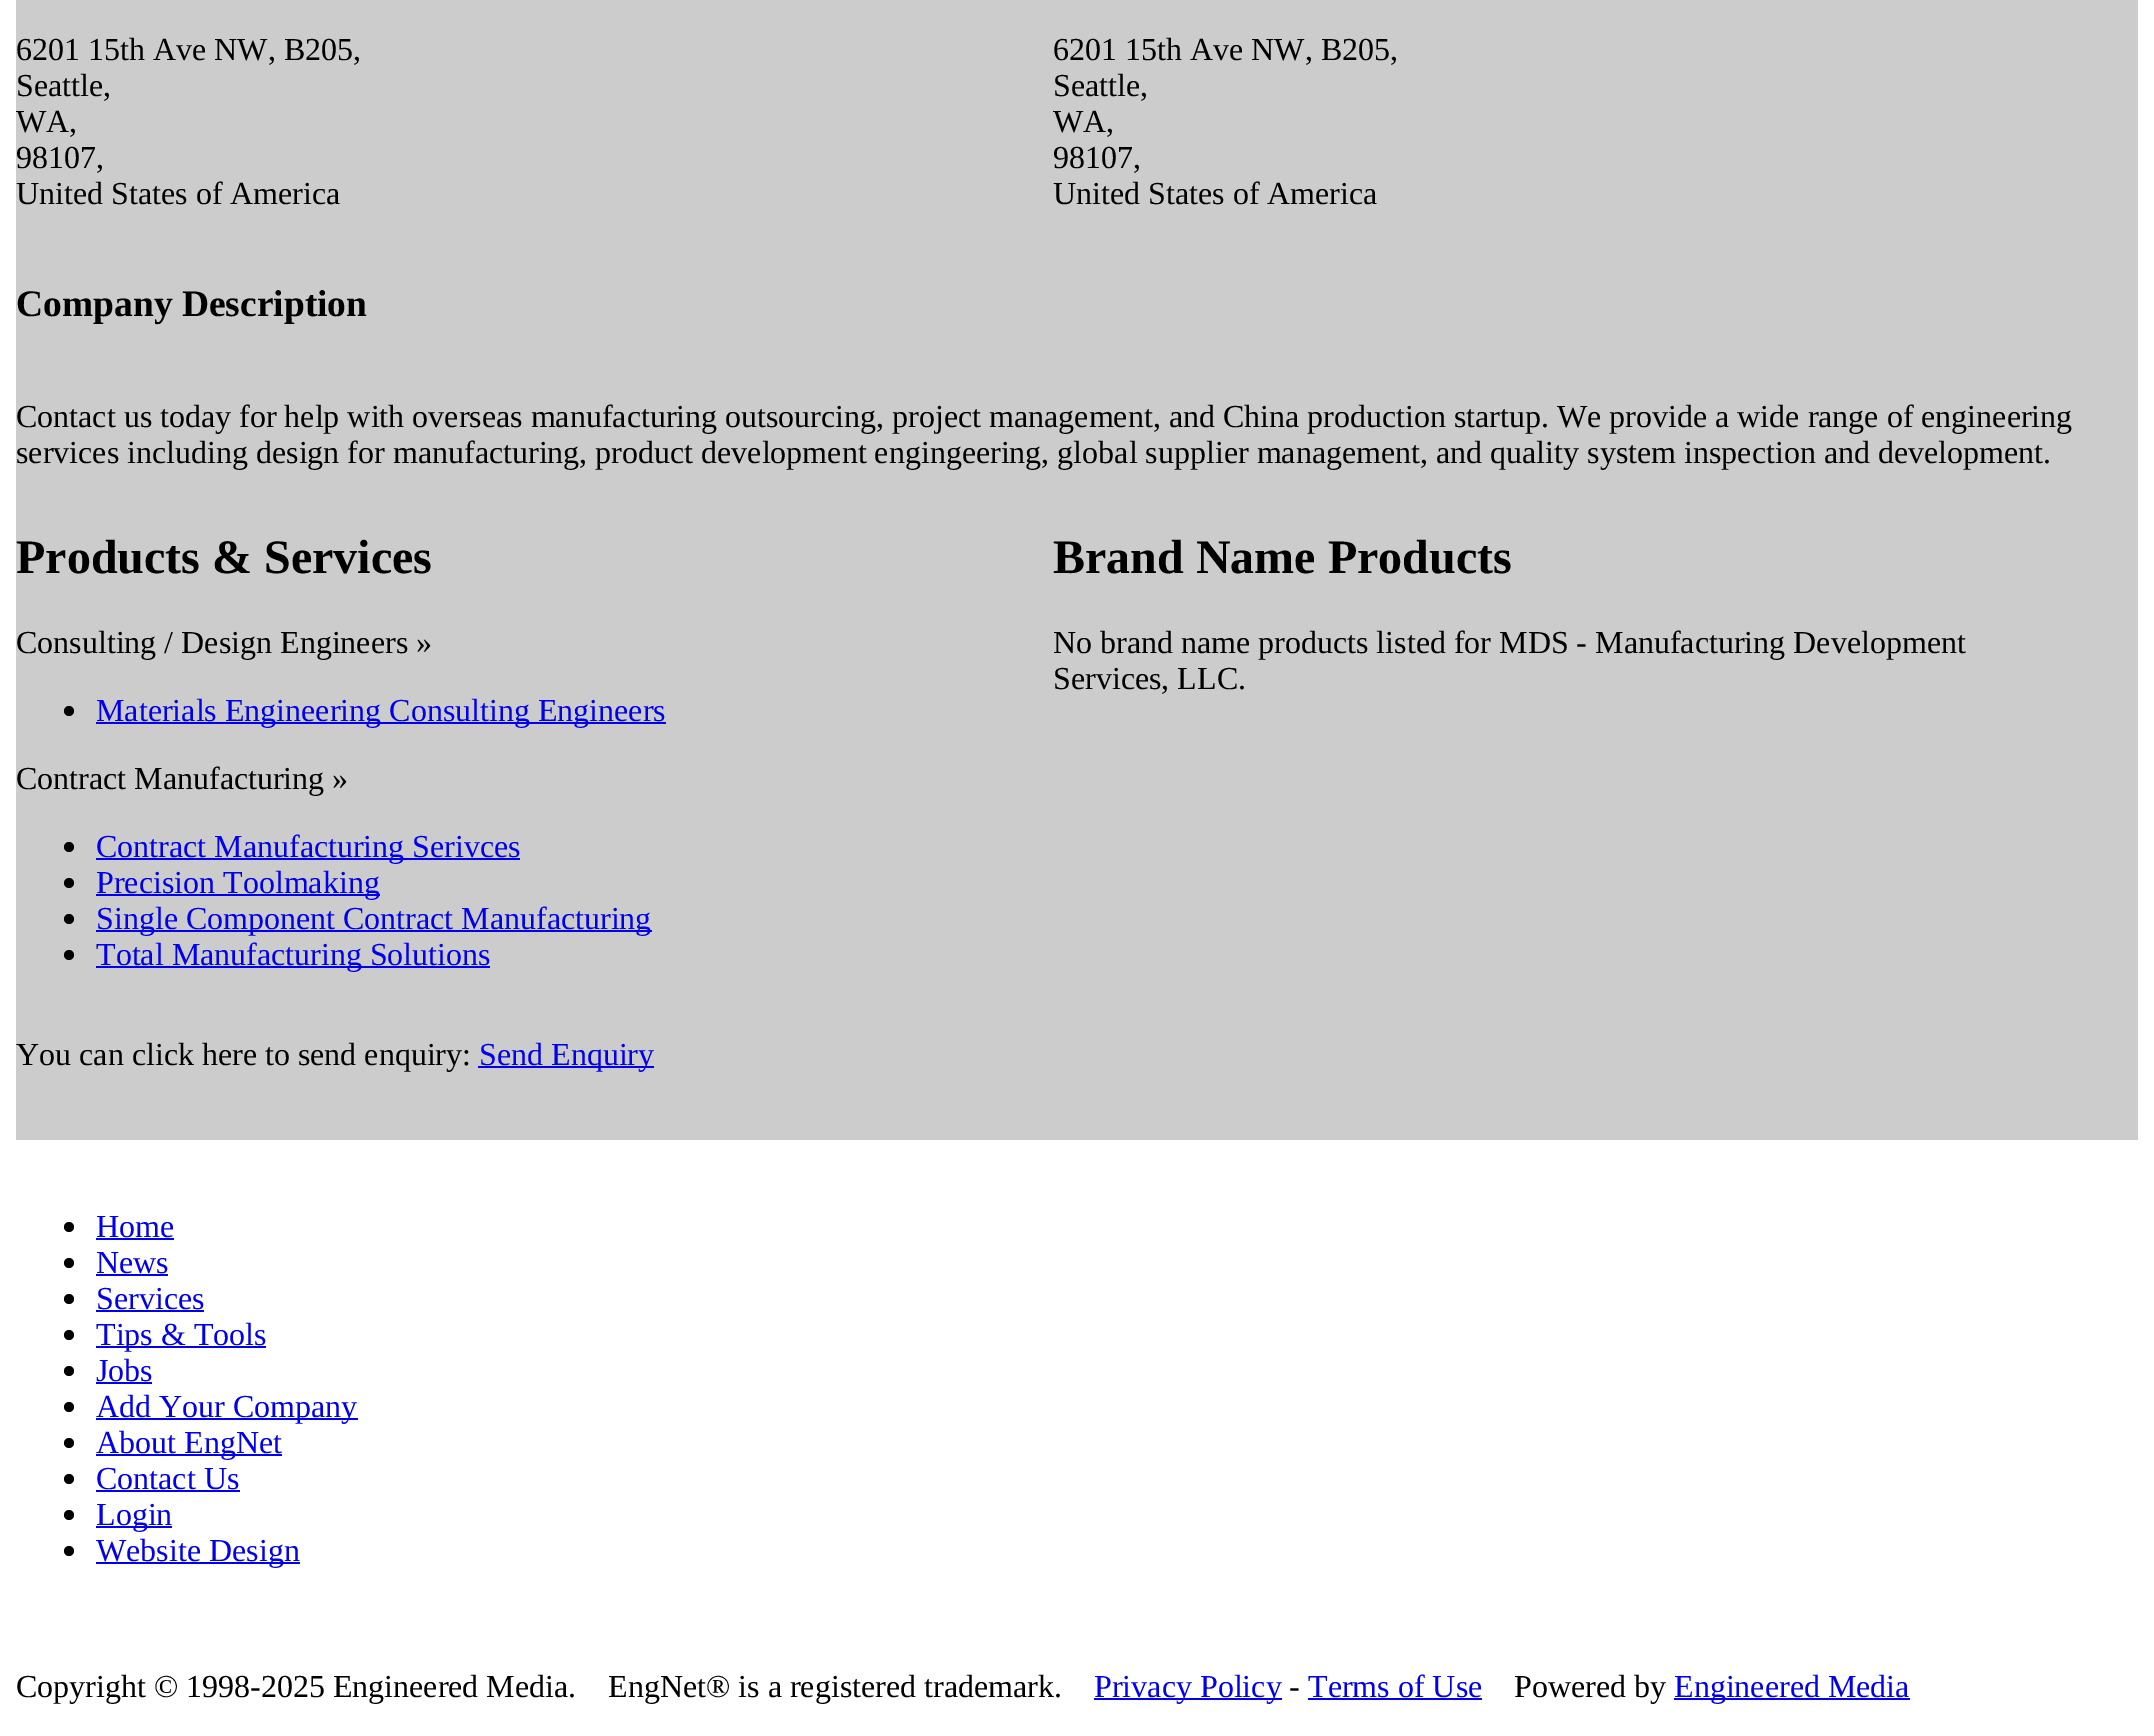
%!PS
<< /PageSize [2154 1736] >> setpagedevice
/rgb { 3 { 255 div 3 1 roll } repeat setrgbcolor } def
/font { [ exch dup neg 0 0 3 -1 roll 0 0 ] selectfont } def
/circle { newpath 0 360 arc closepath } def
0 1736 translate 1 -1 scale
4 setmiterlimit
255 255 255 rgb
0 0 2154 1736 rectfill
204 204 204 rgb
16 0 2122 1140 rectfill
0 0 0 rgb
69 711 5 circle fill
0 0 238 rgb
96 722 570 2 rectfill
0 0 0 rgb
69 847 5 circle fill
0 0 238 rgb
96 858 424 2 rectfill
0 0 0 rgb
69 883 5 circle fill
0 0 238 rgb
96 894 284 2 rectfill
0 0 0 rgb
69 919 5 circle fill
0 0 238 rgb
96 930 556 2 rectfill
0 0 0 rgb
69 955 5 circle fill
0 0 238 rgb
96 966 394 2 rectfill
478 1066 176 2 rectfill
0 0 0 rgb
69 1227 5 circle fill
0 0 238 rgb
96 1238 78 2 rectfill
0 0 0 rgb
69 1263 5 circle fill
0 0 238 rgb
96 1274 72 2 rectfill
0 0 0 rgb
69 1299 5 circle fill
0 0 238 rgb
96 1310 108 2 rectfill
0 0 0 rgb
69 1335 5 circle fill
0 0 238 rgb
96 1346 170 2 rectfill
0 0 0 rgb
69 1371 5 circle fill
0 0 238 rgb
96 1382 56 2 rectfill
0 0 0 rgb
69 1407 5 circle fill
0 0 238 rgb
96 1418 262 2 rectfill
0 0 0 rgb
69 1443 5 circle fill
0 0 238 rgb
96 1454 186 2 rectfill
0 0 0 rgb
69 1479 5 circle fill
0 0 238 rgb
96 1490 144 2 rectfill
0 0 0 rgb
69 1515 5 circle fill
0 0 238 rgb
96 1526 76 2 rectfill
0 0 0 rgb
69 1551 5 circle fill
[
  [96 1562 204 2 0 0 238]
  [1094 1698 188 2 0 0 238]
  [1308 1698 174 2 0 0 238]
  [1674 1698 236 2 0 0 238]
] { aload pop rgb rectfill } forall
/LiberationSerif-Regular 32 font
0 0 0 rgb
[
  [(6201 15th Ave NW, B205,) 16 60]
  [(Seattle,) 16 96]
  [(WA,) 16 132]
  [(98107,) 16 168]
  [(United States of America) 16 204]
  [(6201 15th Ave NW, B205,) 1053 60]
  [(Seattle,) 1053 96]
  [(WA,) 1053 132]
  [(98107,) 1053 168]
  [(United States of America) 1053 204]
] { aload pop moveto show } forall
/LiberationSerif-Bold 37.5 font
16 316 moveto (Company Description) show
/LiberationSerif-Regular 32 font
16 427 moveto (Contact us today for help with overseas manufacturing outsourcing, project management, and China production startup. We provide a wide range of engineering) show
16 463 moveto (services including design for manufacturing, product development engingeering, global supplier management, and quality system inspection and development.) show
/LiberationSerif-Bold 48 font
16 573 moveto (Products & Services) show
/LiberationSerif-Regular 32 font
16 653 moveto (Consulting / Design Engineers ») show
0 0 238 rgb
96 721 moveto (Materials Engineering Consulting Engineers) show
0 0 0 rgb
16 789 moveto (Contract Manufacturing ») show
0 0 238 rgb
[
  [(Contract Manufacturing Serivces) 96 857]
  [(Precision Toolmaking) 96 893]
  [(Single Component Contract Manufacturing) 96 929]
  [(Total Manufacturing Solutions) 96 965]
] { aload pop moveto show } forall
/LiberationSerif-Bold 48 font
0 0 0 rgb
1053 573 moveto (Brand Name Products) show
/LiberationSerif-Regular 32 font
[
  [(No brand name products listed for MDS - Manufacturing Development) 1053 653]
  [(Services, LLC.) 1053 689]
  [(You can click here to send enquiry:) 16 1065]
] { aload pop moveto show } forall
0 0 238 rgb
[
  [(Send Enquiry) 479 1065]
  [(Home) 96 1237]
  [(News) 96 1273]
  [(Services) 96 1309]
  [(Tips & Tools) 96 1345]
  [(Jobs) 96 1381]
  [(Add Your Company) 96 1417]
  [(About EngNet) 96 1453]
  [(Contact Us) 96 1489]
  [(Login) 96 1525]
  [(Website Design) 96 1561]
] { aload pop moveto show } forall
0 0 0 rgb
16 1697 moveto (Copyright © 1998-2025 Engineered Media.    EngNet® is a registered trademark.) show
0 0 238 rgb
1094 1697 moveto (Privacy Policy) show
0 0 0 rgb
1289 1697 moveto (-) show
0 0 238 rgb
1308 1697 moveto (Terms of Use) show
0 0 0 rgb
1514 1697 moveto (Powered by) show
0 0 238 rgb
1674 1697 moveto (Engineered Media) show
showpage
